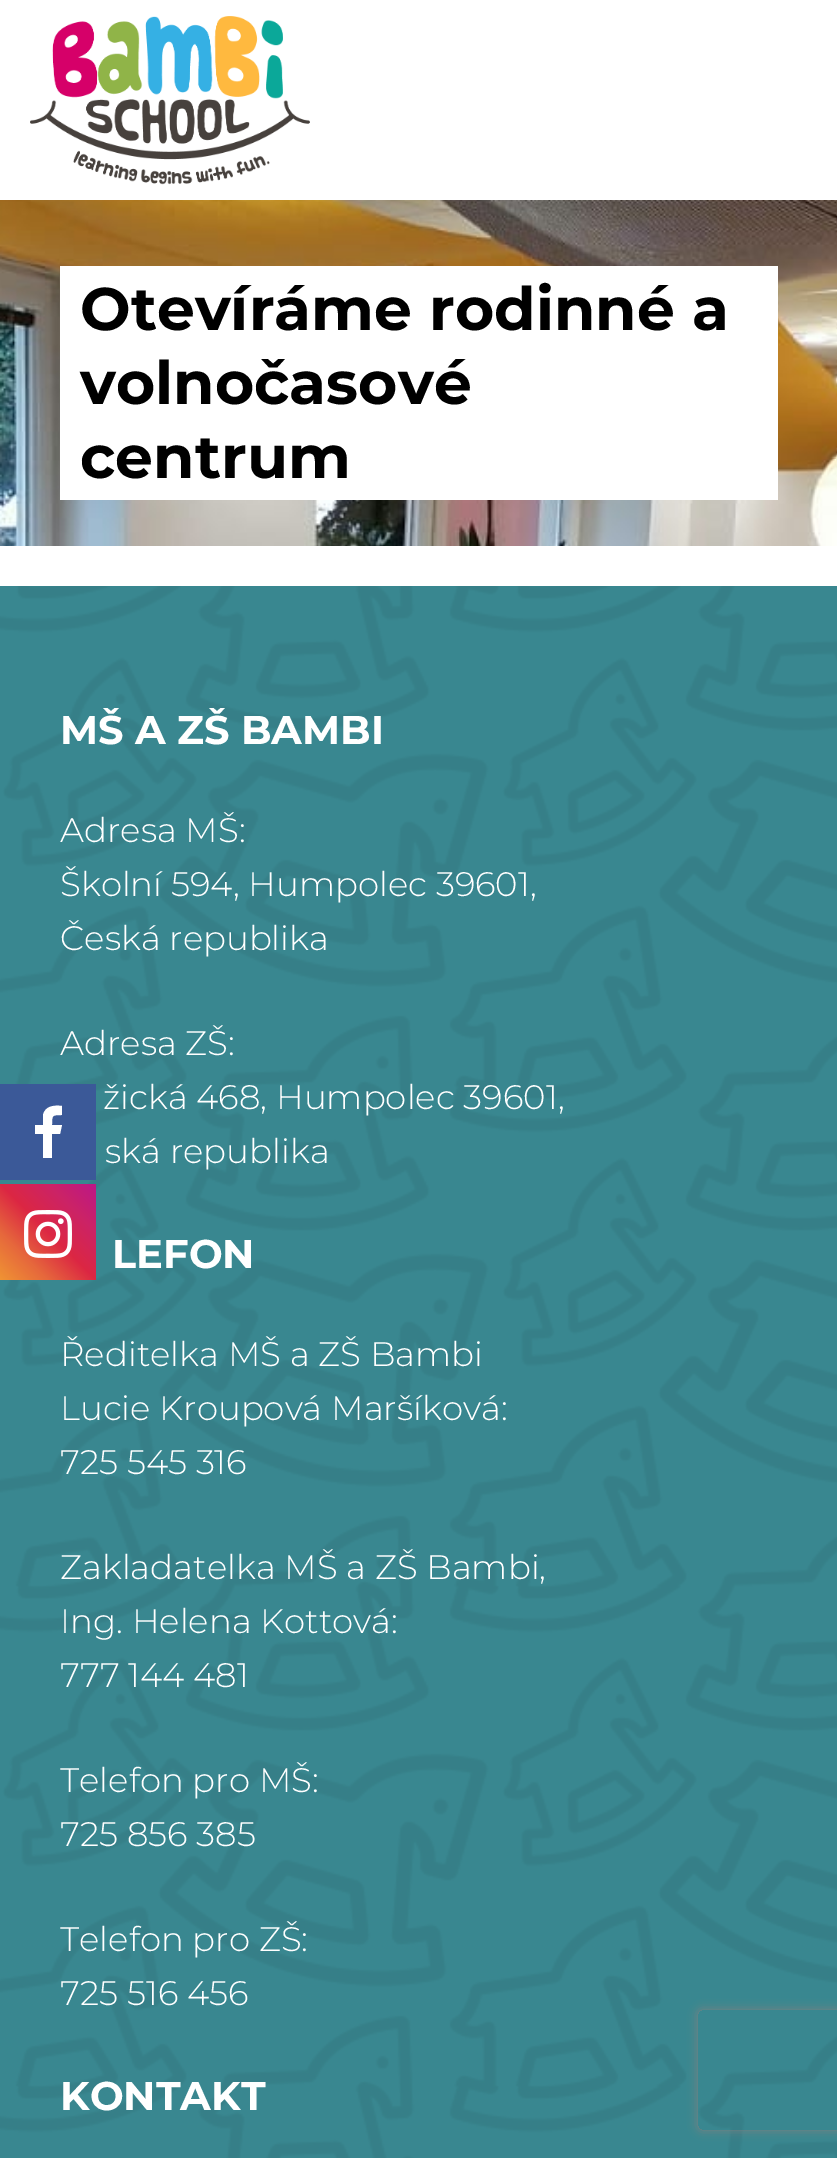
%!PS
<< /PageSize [837 2158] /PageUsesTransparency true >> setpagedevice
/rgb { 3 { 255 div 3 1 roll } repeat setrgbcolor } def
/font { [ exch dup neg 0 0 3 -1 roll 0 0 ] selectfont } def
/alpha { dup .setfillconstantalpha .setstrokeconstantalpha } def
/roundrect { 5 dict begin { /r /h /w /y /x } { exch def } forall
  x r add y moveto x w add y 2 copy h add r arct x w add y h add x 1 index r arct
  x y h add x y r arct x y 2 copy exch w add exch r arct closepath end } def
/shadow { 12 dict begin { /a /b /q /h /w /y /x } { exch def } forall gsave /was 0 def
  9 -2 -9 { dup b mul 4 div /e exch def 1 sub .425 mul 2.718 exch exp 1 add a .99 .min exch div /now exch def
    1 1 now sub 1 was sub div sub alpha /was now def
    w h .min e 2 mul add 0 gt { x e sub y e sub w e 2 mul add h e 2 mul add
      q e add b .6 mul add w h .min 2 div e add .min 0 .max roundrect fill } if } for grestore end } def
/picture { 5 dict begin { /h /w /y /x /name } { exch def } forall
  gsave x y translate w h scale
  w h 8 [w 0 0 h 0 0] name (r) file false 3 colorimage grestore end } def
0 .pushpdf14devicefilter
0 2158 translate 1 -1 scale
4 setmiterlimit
255 255 255 rgb
0 0 837 2158 rectfill
57 135 144 rgb
0 586 837 1572 rectfill
(img/4.rgb) 0 586 837 1572 picture
59 89 152 rgb
0 1084 96 96 rectfill
255 255 255 rgb
62 1106 moveto 62 1115 lineto 52 1115 52 1115 52 1125 curveto 62 1125 lineto 60 1134 lineto 52 1134 lineto 52 1158 lineto 43 1158 lineto 43 1134 lineto 35 1134 lineto 35 1125 lineto 43 1125 lineto 43 1115 lineto 45 1106 54 1105 62 1106 curveto closepath fill
gsave 0 1184 moveto 96 1184 lineto 96 1280 lineto 0 1280 lineto closepath clip newpath
<< /ShadingType 2 /ColorSpace /DeviceRGB /Coords [0 1280 96 1184] /Extend [true true] /Function << /FunctionType 3 /Domain [0 1] /Functions [<< /FunctionType 2 /Domain [0 1] /C0 [0.941 0.58 0.2] /C1 [0.902 0.408 0.235] /N 1 >> << /FunctionType 2 /Domain [0 1] /C0 [0.902 0.408 0.235] /C1 [0.863 0.153 0.263] /N 1 >> << /FunctionType 2 /Domain [0 1] /C0 [0.863 0.153 0.263] /C1 [0.8 0.137 0.4] /N 1 >> << /FunctionType 2 /Domain [0 1] /C0 [0.8 0.137 0.4] /C1 [0.737 0.094 0.533] /N 1 >>] /Bounds [0.25 0.5 0.75] /Encode [0 1 0 1 0 1 0 1] >> >> shfill grestore
(img/1.rgb) 24 1210 48 48 picture
(img/2.rgb) 30 16 280 169 picture
(img/3.rgb) 0 200 837 346 picture
60 266 718 234 rectfill
gsave
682 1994 moveto 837 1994 lineto 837 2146 lineto 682 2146 lineto closepath 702 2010 moveto 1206 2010 lineto 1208 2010 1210 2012 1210 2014 curveto 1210 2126 lineto 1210 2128 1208 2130 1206 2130 curveto 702 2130 lineto 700 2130 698 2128 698 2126 curveto 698 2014 lineto 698 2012 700 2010 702 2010 curveto closepath eoclip newpath
128 128 128 rgb
698 2010 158 120 4 5 1 shadow
grestore
/Montserrat-Bold 60 font
0 0 0 rgb
[
  [(Otevíráme rodinné a) 80 330]
  [(volnočasové) 80 404]
  [(centrum) 80 478]
] { aload pop moveto show } forall
/Montserrat-Bold 40 font
255 255 255 rgb
60 744 moveto (MŠ A ZŠ BAMBI) show
/Montserrat-Light 34 font
[
  [(Adresa MŠ:) 60 842]
  [(Školní 594, Humpolec 39601,) 60 896]
  [(Česká republika) 60 950]
  [(Adresa ZŠ:) 60 1055]
  [(žická 468, Humpolec 39601,) 103 1109]
  [(ská republika) 105 1163]
] { aload pop moveto show } forall
/Montserrat-Bold 40 font
112 1268 moveto (LEFON) show
/Montserrat-Light 34 font
[
  [(Ředitelka MŠ a ZŠ Bambi) 60 1366]
  [(Lucie Kroupová Maršíková:) 60 1420]
  [(725 545 316) 60 1474]
  [(Zakladatelka MŠ a ZŠ Bambi,) 60 1579]
  [(Ing. Helena Kottová:) 60 1633]
  [(777 144 481) 60 1687]
  [(Telefon pro MŠ:) 60 1792]
  [(725 856 385) 60 1846]
  [(Telefon pro ZŠ:) 60 1951]
  [(725 516 456) 60 2005]
] { aload pop moveto show } forall
/Montserrat-Bold 40 font
60 2110 moveto (KONTAKT) show
.poppdf14devicefilter showpage
